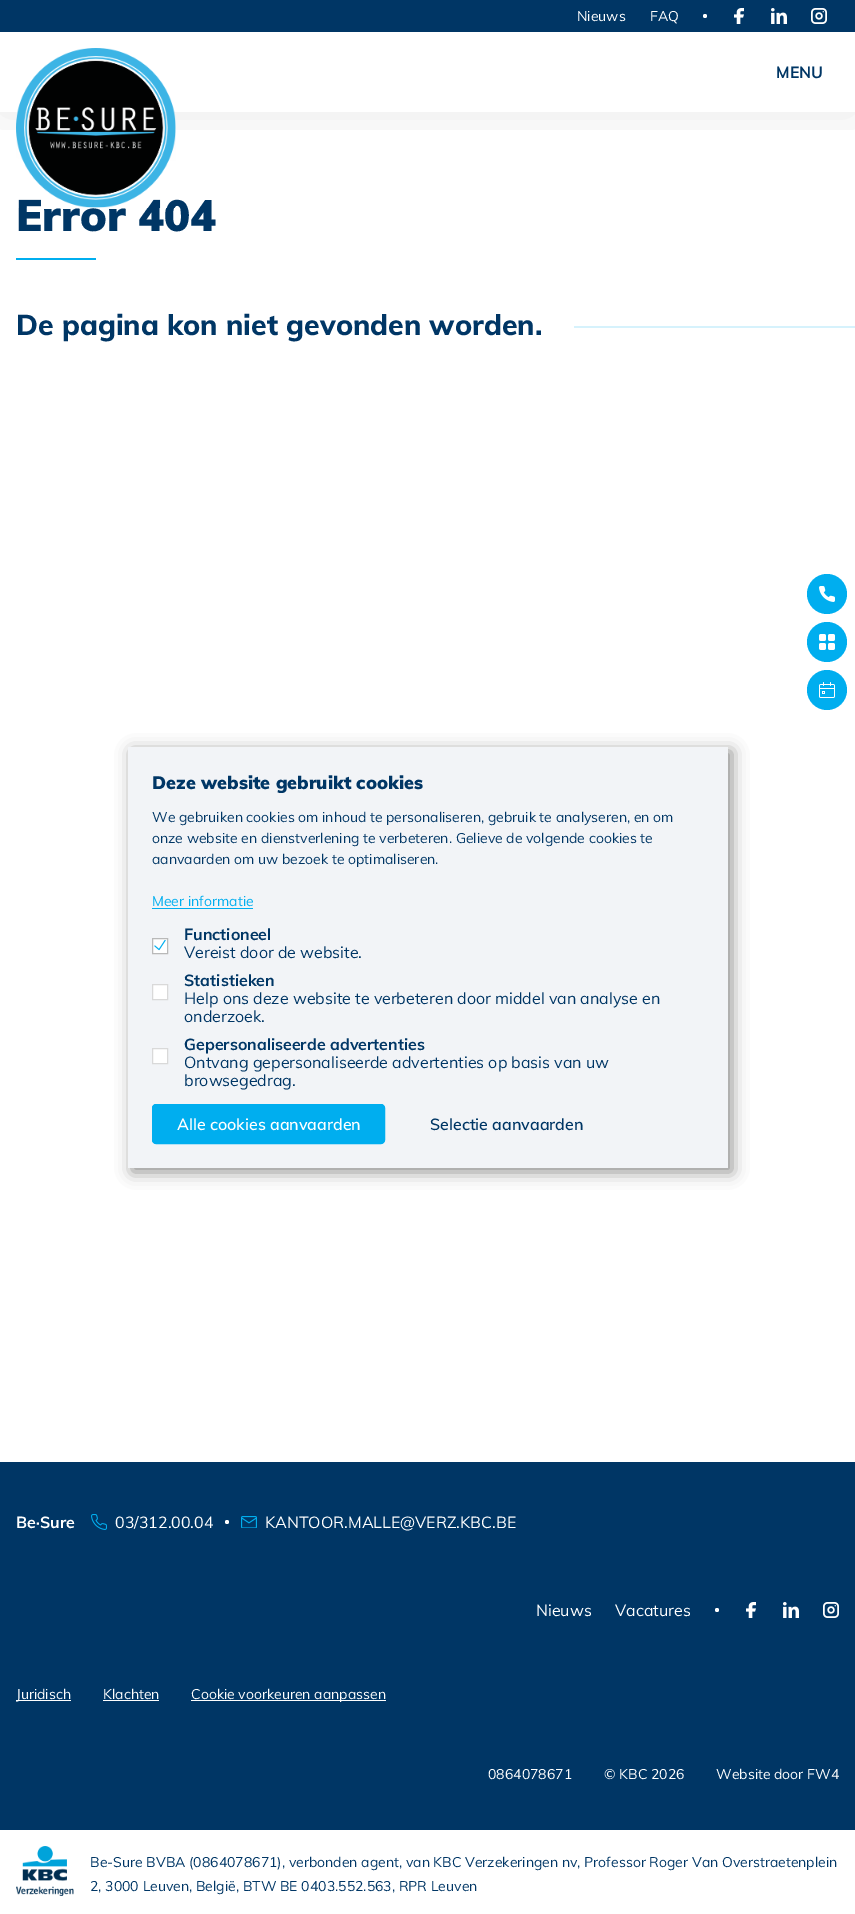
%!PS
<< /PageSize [855 1914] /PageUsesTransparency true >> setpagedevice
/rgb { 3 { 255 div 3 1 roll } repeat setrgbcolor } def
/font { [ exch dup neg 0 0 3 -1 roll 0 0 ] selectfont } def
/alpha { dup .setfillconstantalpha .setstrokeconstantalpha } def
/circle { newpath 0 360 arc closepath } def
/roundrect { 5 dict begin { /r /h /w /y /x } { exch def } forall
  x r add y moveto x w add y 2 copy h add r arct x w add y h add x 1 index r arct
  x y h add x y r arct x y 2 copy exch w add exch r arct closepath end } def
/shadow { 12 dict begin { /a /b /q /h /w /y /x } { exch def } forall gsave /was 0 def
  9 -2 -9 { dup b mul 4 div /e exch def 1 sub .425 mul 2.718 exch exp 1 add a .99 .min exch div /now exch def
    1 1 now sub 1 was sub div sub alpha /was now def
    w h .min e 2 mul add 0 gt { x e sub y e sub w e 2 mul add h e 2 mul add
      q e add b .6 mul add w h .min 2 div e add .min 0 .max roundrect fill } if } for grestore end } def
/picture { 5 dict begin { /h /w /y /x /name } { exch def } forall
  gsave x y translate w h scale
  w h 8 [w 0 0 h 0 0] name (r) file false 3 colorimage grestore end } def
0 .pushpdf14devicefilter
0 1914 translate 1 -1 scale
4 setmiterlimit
255 255 255 rgb
0 0 855 1914 rectfill
gsave
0 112 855 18 rectclip
0 0 0 rgb
0 2 855 112 0 24 0.08 shadow
grestore
0 54 101 rgb
0 0 855 32 rectfill
255 255 255 rgb
705 16 2 circle fill
(img/1.rgb) 734 8 10 16 picture
(img/2.rgb) 771 8 16 16 picture
(img/3.rgb) 811 8 16 16 picture
0 174 239 rgb
16 258 80 2 rectfill
214 242 252 rgb
574 326 281 2 rectfill
0 174 239 rgb
827 594 20 circle fill
(img/5.rgb) 819 586 16 16 picture
827 642 20 circle fill
(img/6.rgb) 819 634 16 16 picture
827 690 20 circle fill
(img/7.rgb) 819 682 16 16 picture
29 29 27 rgb
132 751 600 421 0 8 0.5 shadow
[
  [128 747 600 421 242 244 247]
  [152 908 101 1 0 174 239]
  [153 939 14 14 255 255 255]
] { aload pop rgb rectfill } forall
(img/8.rgb) 154 940 12 11 picture
185 185 185 rgb
152.5 938.5 15 15 rectstroke
255 255 255 rgb
152.5 984.5 moveto 167.5 984.5 lineto 167.5 999.5 lineto 152.5 999.5 lineto closepath gsave fill grestore
217 217 217 rgb
stroke
255 255 255 rgb
152.5 1048.5 moveto 167.5 1048.5 lineto 167.5 1063.5 lineto 152.5 1063.5 lineto closepath gsave fill grestore
217 217 217 rgb
stroke
0 174 239 rgb
152.5 1104.5 232 39 3.5 roundrect gsave fill grestore
stroke
0 54 101 rgb
0 1462 855 368 rectfill
(img/9.rgb) 91 1514 16 16 picture
255 255 255 rgb
227 1522 2 circle fill
(img/10.rgb) 241 1516 16 12 picture
717 1610 2 circle fill
(img/1.rgb) 746 1602 10 16 picture
(img/2.rgb) 783 1602 16 16 picture
(img/3.rgb) 823 1602 16 16 picture
[
  [16 1700 55 1 255 255 255]
  [103 1700 56 1 255 255 255]
  [191 1700 195 1 255 255 255]
] { aload pop rgb rectfill } forall
(img/11.rgb) 16 1846 58 50 picture
/Muli-Regular 14 font
577 21 moveto (Nieuws) show
650 21 moveto (FAQ) show
/Muli-Bold 16 font
0 54 101 rgb
776 78 moveto (MENU) show
/Muli-Black 43.5 font
16 231 moveto (Error 404) show
(img/4.rgb) 16 48 160 160 picture
/Muli-ExtraBold 28.5 font
16 335 moveto (De pagina kon niet gevonden worden.) show
/Muli-Black 18 font
152 789 moveto (Deze website gebruikt cookies) show
/Muli-Regular 14 font
[
  [(We gebruiken cookies om inhoud te personaliseren, gebruik te analyseren, en om) 152 822]
  [(onze website en dienstverlening te verbeteren. Gelieve de volgende cookies te) 152 843]
  [(aanvaarden om uw bezoek te optimaliseren.) 152 864]
] { aload pop moveto show } forall
0 174 239 rgb
152 906 moveto (Meer informatie) show
/Muli-Bold 16 font
0 54 101 rgb
184 940 moveto (Functioneel) show
/Muli-Regular 16 font
184 958 moveto (Vereist door de website.) show
/Muli-Bold 16 font
184 986 moveto (Statistieken) show
/Muli-Regular 16 font
184 1004 moveto (Help ons deze website te verbeteren door middel van analyse en) show
184 1022 moveto (onderzoek.) show
/Muli-Bold 16 font
184 1050 moveto (Gepersonaliseerde advertenties) show
/Muli-Regular 16 font
184 1068 moveto (Ontvang gepersonaliseerde advertenties op basis van uw) show
184 1086 moveto (browsegedrag.) show
/Muli-SemiBold 16 font
255 255 255 rgb
177 1130 moveto (Alle cookies aanvaarden) show
0 54 101 rgb
430 1130 moveto (Selectie aanvaarden) show
/Muli-Bold 16 font
255 255 255 rgb
16 1528 moveto (Be·Sure) show
/Muli-Regular 16 font
[
  [(03/312.00.04) 115 1528]
  [(KANTOOR.MALLE@VERZ.KBC.BE) 265 1528]
  [(Nieuws) 536 1616]
  [(Vacatures) 615 1616]
] { aload pop moveto show } forall
/Muli-Regular 14 font
[
  [(Juridisch) 16 1699]
  [(Klachten) 103 1699]
  [(Cookie voorkeuren aanpassen) 191 1699]
  [(0864078671) 488 1779]
  [(© KBC 2026) 604 1779]
  [(Website door FW4) 716 1779]
] { aload pop moveto show } forall
0 54 101 rgb
90 1867 moveto (Be-Sure BVBA \(0864078671\), verbonden agent, van KBC Verzekeringen nv, Professor Roger Van Overstraetenplein) show
90 1891 moveto (2, 3000 Leuven, België, BTW BE 0403.552.563, RPR Leuven) show
.poppdf14devicefilter showpage
